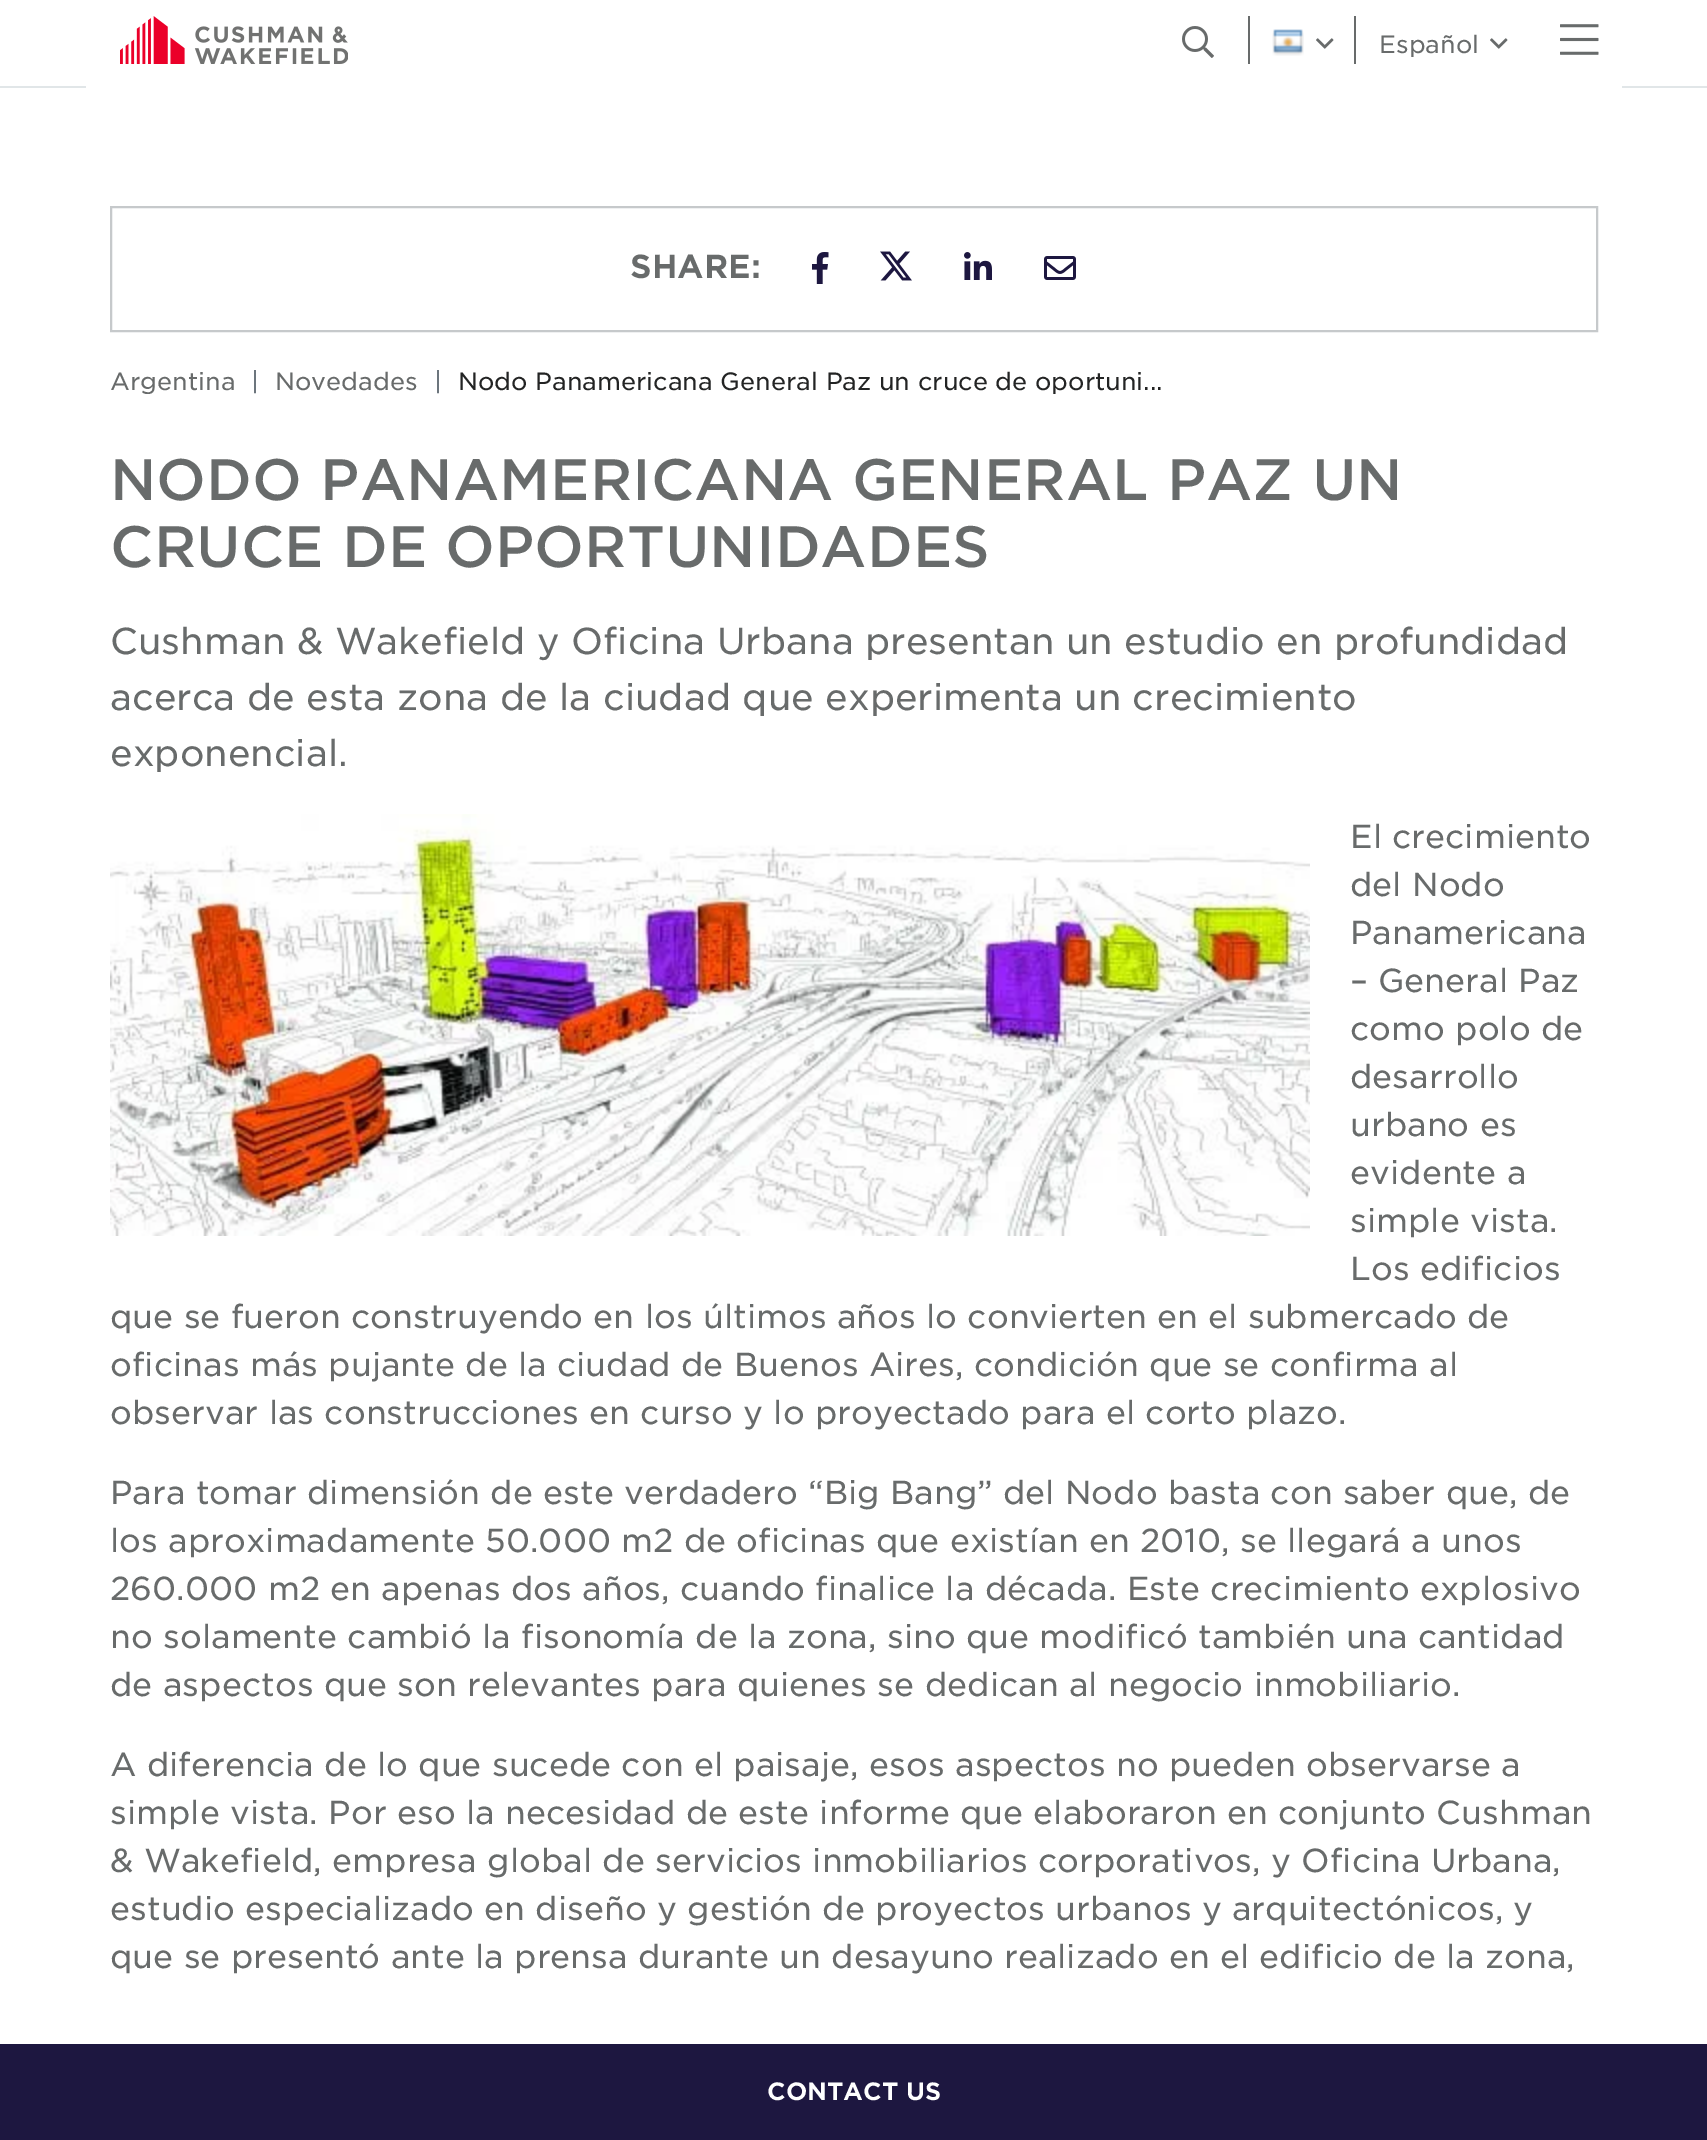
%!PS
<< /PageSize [1707 2140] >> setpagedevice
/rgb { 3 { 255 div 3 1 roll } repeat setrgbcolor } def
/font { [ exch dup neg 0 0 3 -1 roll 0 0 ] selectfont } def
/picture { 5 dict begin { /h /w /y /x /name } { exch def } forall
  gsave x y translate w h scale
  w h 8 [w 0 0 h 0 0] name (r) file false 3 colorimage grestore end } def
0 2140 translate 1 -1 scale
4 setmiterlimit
255 255 255 rgb
0 0 1707 2140 rectfill
225 230 232 rgb
0 86 1707 2 rectfill
(img/1.rgb) 120 16 228 48 picture
(img/2.rgb) 1182 26 32 32 picture
104 107 107 rgb
1248 16 2 48 rectfill
(img/3.rgb) 1272 29 32 27 picture
(img/4.rgb) 1316 38 18 11 picture
1354 16 2 48 rectfill
(img/4.rgb) 1490 38 18 11 picture
(img/5.rgb) 1560 24 39 31 picture
255 255 255 rgb
86 86 1536 2 rectfill
29 23 64 rgb
0 2044 1707 96 rectfill
198 201 203 rgb
2 setlinewidth
111 207 1486 124 rectstroke
(img/6.rgb) 812 252 17 32 picture
(img/7.rgb) 880 251 32 30 picture
(img/8.rgb) 964 252 28 28 picture
(img/9.rgb) 1044 256 32 24 picture
(img/10.rgb) 110 814 1200 422 picture
/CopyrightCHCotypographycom-Light 24 font
104 107 107 rgb
1379 53 moveto (Español) show
/CopyrightCHCotypographycom-Regular 24 font
255 255 255 rgb
767 2100 moveto (CONTACT US) show
/CopyrightCHCotypographycom-Regular 32 font
104 107 107 rgb
630 278 moveto (SHARE:) show
/CopyrightCHCotypographycom-Light 24 font
110 390 moveto (Argentina) show
108 117 125 rgb
251 390 moveto (|) show
104 107 107 rgb
275 390 moveto (Novedades) show
108 117 125 rgb
434 390 moveto (|) show
35 36 36 rgb
458 390 moveto (Nodo Panamericana General Paz un cruce de oportuni...) show
/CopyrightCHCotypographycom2-Light 56 font
104 107 107 rgb
110 500 moveto (NODO PANAMERICANA GENERAL PAZ UN) show
110 567 moveto (CRUCE DE OPORTUNIDADES) show
/CopyrightCHCotypographycom-Light 36 font
[
  [(Cushman & Wakefield y Oficina Urbana presentan un estudio en profundidad) 110 654]
  [(acerca de esta zona de la ciudad que experimenta un crecimiento) 110 710]
  [(exponencial.) 110 766]
] { aload pop moveto show } forall
/CopyrightCHCotypographycom-Light 32 font
[
  [(El crecimiento) 1350 848]
  [(del Nodo) 1350 896]
  [(Panamericana) 1350 944]
  [(– General Paz) 1350 992]
  [(como polo de) 1350 1040]
  [(desarrollo) 1350 1088]
  [(urbano es) 1350 1136]
  [(evidente a) 1350 1184]
  [(simple vista.) 1350 1232]
  [(Los edificios) 1350 1280]
  [(que se fueron construyendo en los últimos años lo convierten en el submercado de) 110 1328]
  [(oficinas más pujante de la ciudad de Buenos Aires, condición que se confirma al) 110 1376]
  [(observar las construcciones en curso y lo proyectado para el corto plazo.) 110 1424]
  [(Para tomar dimensión de este verdadero “Big Bang” del Nodo basta con saber que, de) 110 1504]
  [(los aproximadamente 50.000 m2 de oficinas que existían en 2010, se llegará a unos) 110 1552]
  [(260.000 m2 en apenas dos años, cuando finalice la década. Este crecimiento explosivo) 110 1600]
  [(no solamente cambió la fisonomía de la zona, sino que modificó también una cantidad) 110 1648]
  [(de aspectos que son relevantes para quienes se dedican al negocio inmobiliario.) 110 1696]
  [(A diferencia de lo que sucede con el paisaje, esos aspectos no pueden observarse a) 110 1776]
  [(simple vista. Por eso la necesidad de este informe que elaboraron en conjunto Cushman) 110 1824]
  [(& Wakefield, empresa global de servicios inmobiliarios corporativos, y Oficina Urbana,) 110 1872]
  [(estudio especializado en diseño y gestión de proyectos urbanos y arquitectónicos, y) 110 1920]
  [(que se presentó ante la prensa durante un desayuno realizado en el edificio de la zona,) 110 1968]
] { aload pop moveto show } forall
showpage
